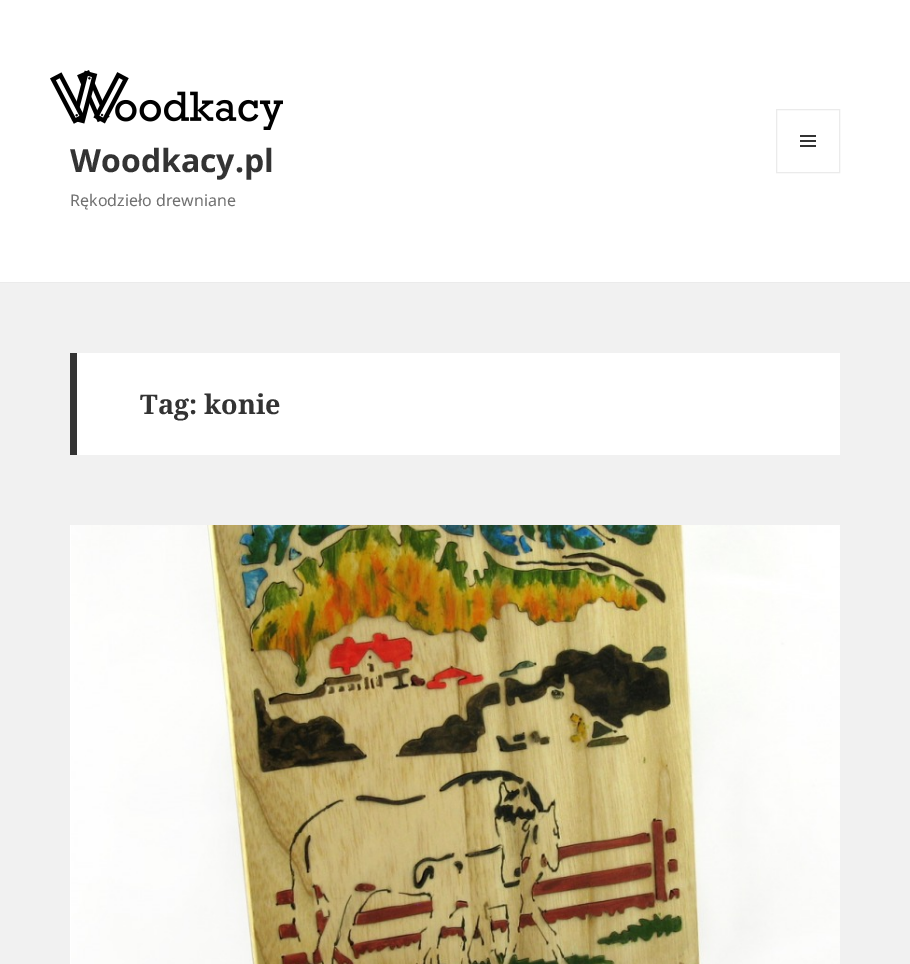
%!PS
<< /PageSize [910 964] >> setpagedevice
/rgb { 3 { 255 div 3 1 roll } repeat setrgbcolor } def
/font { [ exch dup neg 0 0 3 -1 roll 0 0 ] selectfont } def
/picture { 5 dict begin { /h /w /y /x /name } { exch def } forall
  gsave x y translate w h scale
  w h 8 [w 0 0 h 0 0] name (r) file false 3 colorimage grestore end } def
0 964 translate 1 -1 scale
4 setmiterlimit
241 241 241 rgb
0 0 910 964 rectfill
255 255 255 rgb
0 0 910 282 rectfill
235 235 235 rgb
0 282 910 1 rectfill
(img/1.rgb) 50 70 233 60 picture
776.5 109.5 63 63 rectstroke
(img/2.rgb) 800 135 16 12 picture
[
  [77 353 763 102 255 255 255]
  [70 353 7 102 51 51 51]
  [70 525 1 439 255 255 255]
] { aload pop rgb rectfill } forall
(img/3.rgb) 71 525 769 439 picture
/NotoSans-Bold 32 font
51 51 51 rgb
70 172 moveto (Woodkacy.pl) show
/NotoSans-Regular 16 font
112 112 112 rgb
70 206 moveto (Rękodzieło drewniane) show
/NotoSerif-Bold 27 font
51 51 51 rgb
140 414 moveto (Tag: konie) show
showpage
